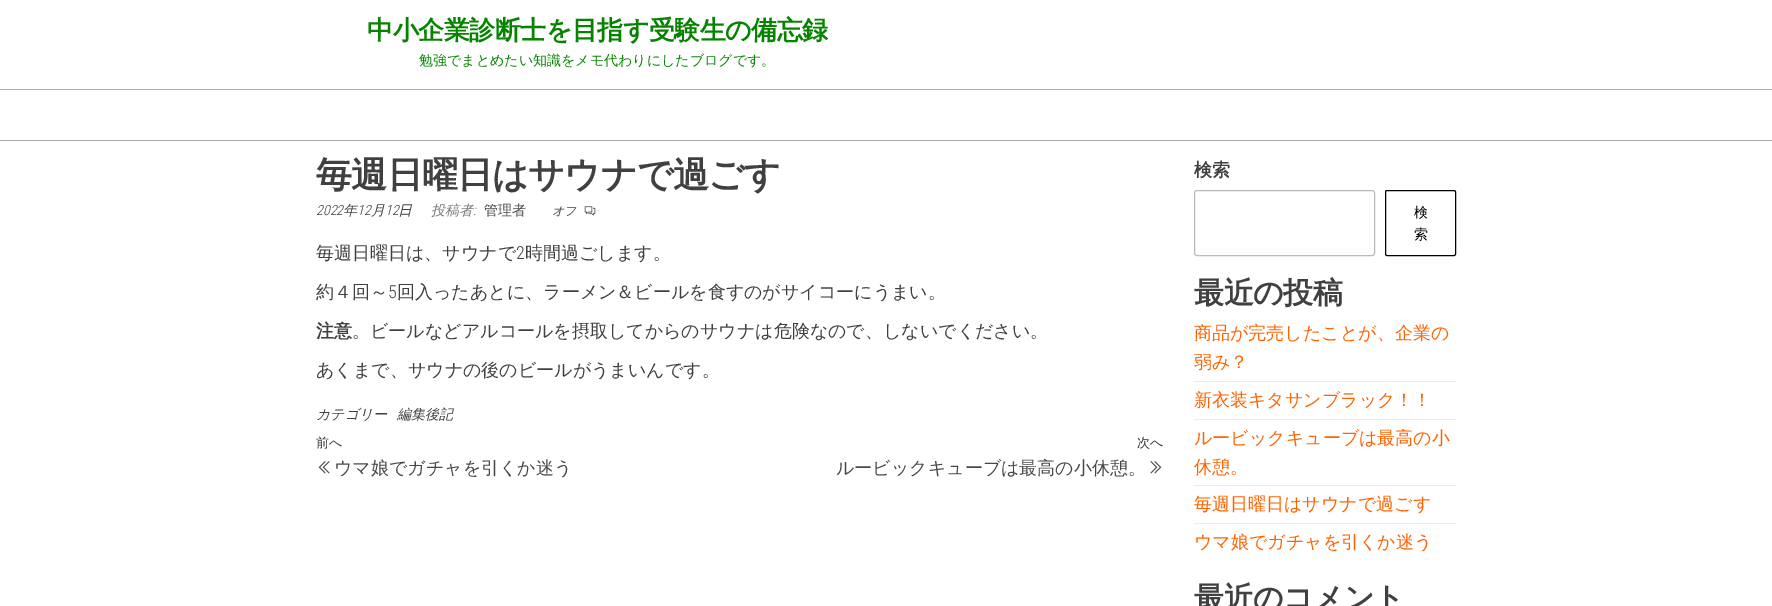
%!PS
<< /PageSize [1772 606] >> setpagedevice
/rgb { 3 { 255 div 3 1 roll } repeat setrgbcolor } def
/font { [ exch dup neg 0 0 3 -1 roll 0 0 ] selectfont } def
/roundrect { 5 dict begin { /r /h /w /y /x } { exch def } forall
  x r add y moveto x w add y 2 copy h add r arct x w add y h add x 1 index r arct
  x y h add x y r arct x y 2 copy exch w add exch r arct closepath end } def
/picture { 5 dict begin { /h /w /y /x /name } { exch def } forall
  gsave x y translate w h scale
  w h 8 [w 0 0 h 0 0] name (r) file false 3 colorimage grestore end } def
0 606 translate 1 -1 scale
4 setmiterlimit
255 255 255 rgb
0 0 1772 606 rectfill
172 172 172 rgb
0 89 1772 1 rectfill
0 140 1772 1 rectfill
(img/1.rgb) 584 206 12 10 picture
(img/2.rgb) 318 461 12 13 picture
(img/3.rgb) 1150 461 12 13 picture
187 187 187 rgb
1194.5 190.5 180 65 2.5 roundrect stroke
0 0 0 rgb
1385.5 190.5 70 65 1.5 roundrect stroke
[
  [1194 381 262 1 235 235 235]
  [1194 419 262 1 235 235 235]
  [1194 485 262 1 235 235 235]
  [1194 523 262 1 235 235 235]
] { aload pop rgb rectfill } forall
/WenQuanYiZenHei-Bold 26 font
6 132 0 rgb
367 39 moveto -0.5 0 (中小企業診断士を目指す受験生の備忘録) ashow
/WenQuanYiZenHei-Medium 14 font
419 65 moveto (勉強でまとめたい知識をメモ代わりにしたブログです。) show
/WenQuanYiZenHei-Bold 36 font
64 64 64 rgb
316 187 moveto -0.75 0 (毎週日曜日はサウナで過ごす) ashow
/RobotoCondensed-LightItalic 14 font
316 215 moveto (2022) show
/WenQuanYiZenHei-MediumItalic 14 font
343 215 moveto (年) show
/RobotoCondensed-LightItalic 14 font
357 215 moveto (12) show
/WenQuanYiZenHei-MediumItalic 14 font
371 215 moveto (月) show
/RobotoCondensed-LightItalic 14 font
385 215 moveto (12) show
/WenQuanYiZenHei-MediumItalic 14 font
398 215 moveto (日) show
121 121 121 rgb
431 215 moveto (投稿者) show
/RobotoCondensed-LightItalic 14 font
473 215 moveto (:) show
/WenQuanYiZenHei-Medium 14 font
72 72 72 rgb
484 215 moveto (管理者) show
/WenQuanYiZenHei-MediumItalic 12 font
64 64 64 rgb
552 215 moveto (オフ) show
/WenQuanYiZenHei-Medium 18 font
316 259 moveto (毎週日曜日は、サウナで) show
/RobotoCondensed-Light 18 font
516 259 moveto (2) show
/WenQuanYiZenHei-Medium 18 font
525 259 moveto (時間過ごします。) show
316 298 moveto (約４回～) show
/RobotoCondensed-Light 18 font
388 298 moveto (5) show
/WenQuanYiZenHei-Medium 18 font
397 298 moveto (回入ったあとに、ラーメン＆ビールを食すのがサイコーにうまい。) show
/WenQuanYiZenHei-Bold 18 font
316 337 moveto (注意) show
/WenQuanYiZenHei-Medium 18 font
352 337 moveto (。ビールなどアルコールを摂取してからのサウナは危険なので、しないでください。) show
316 376 moveto (あくまで、サウナの後のビールがうまいんです。) show
/WenQuanYiZenHei-MediumItalic 14 font
316 419 moveto (カテゴリー) show
397 419 moveto (編集後記) show
/WenQuanYiZenHei-Medium 13 font
51 51 51 rgb
316 447 moveto (前へ) show
/WenQuanYiZenHei-Medium 18 font
72 72 72 rgb
334 474 moveto (ウマ娘でガチャを引くか迷う) show
/WenQuanYiZenHei-Medium 13 font
51 51 51 rgb
1137 447 moveto (次へ) show
/WenQuanYiZenHei-Medium 18 font
72 72 72 rgb
836 474 moveto (ルービックキューブは最高の小休憩。) show
/WenQuanYiZenHei-Bold 18 font
64 64 64 rgb
1194 176 moveto (検索) show
/WenQuanYiZenHei-Medium 14 font
0 0 0 rgb
1414 217 moveto (検) show
1414 239 moveto (索) show
/WenQuanYiZenHei-Bold 30 font
64 64 64 rgb
1194 303 moveto -0.5 0 (最近の投稿) ashow
/WenQuanYiZenHei-Medium 18 font
255 99 0 rgb
[
  [(商品が完売したことが、企業の) 1194 339]
  [(弱み？) 1194 368]
  [(新衣装キタサンブラック！！) 1194 406]
  [(ルービックキューブは最高の小) 1194 444]
  [(休憩。) 1194 473]
  [(毎週日曜日はサウナで過ごす) 1194 510]
  [(ウマ娘でガチャを引くか迷う) 1194 548]
] { aload pop moveto show } forall
/WenQuanYiZenHei-Bold 30 font
64 64 64 rgb
1194 608 moveto -0.5 0 (最近のコメント) ashow
showpage
